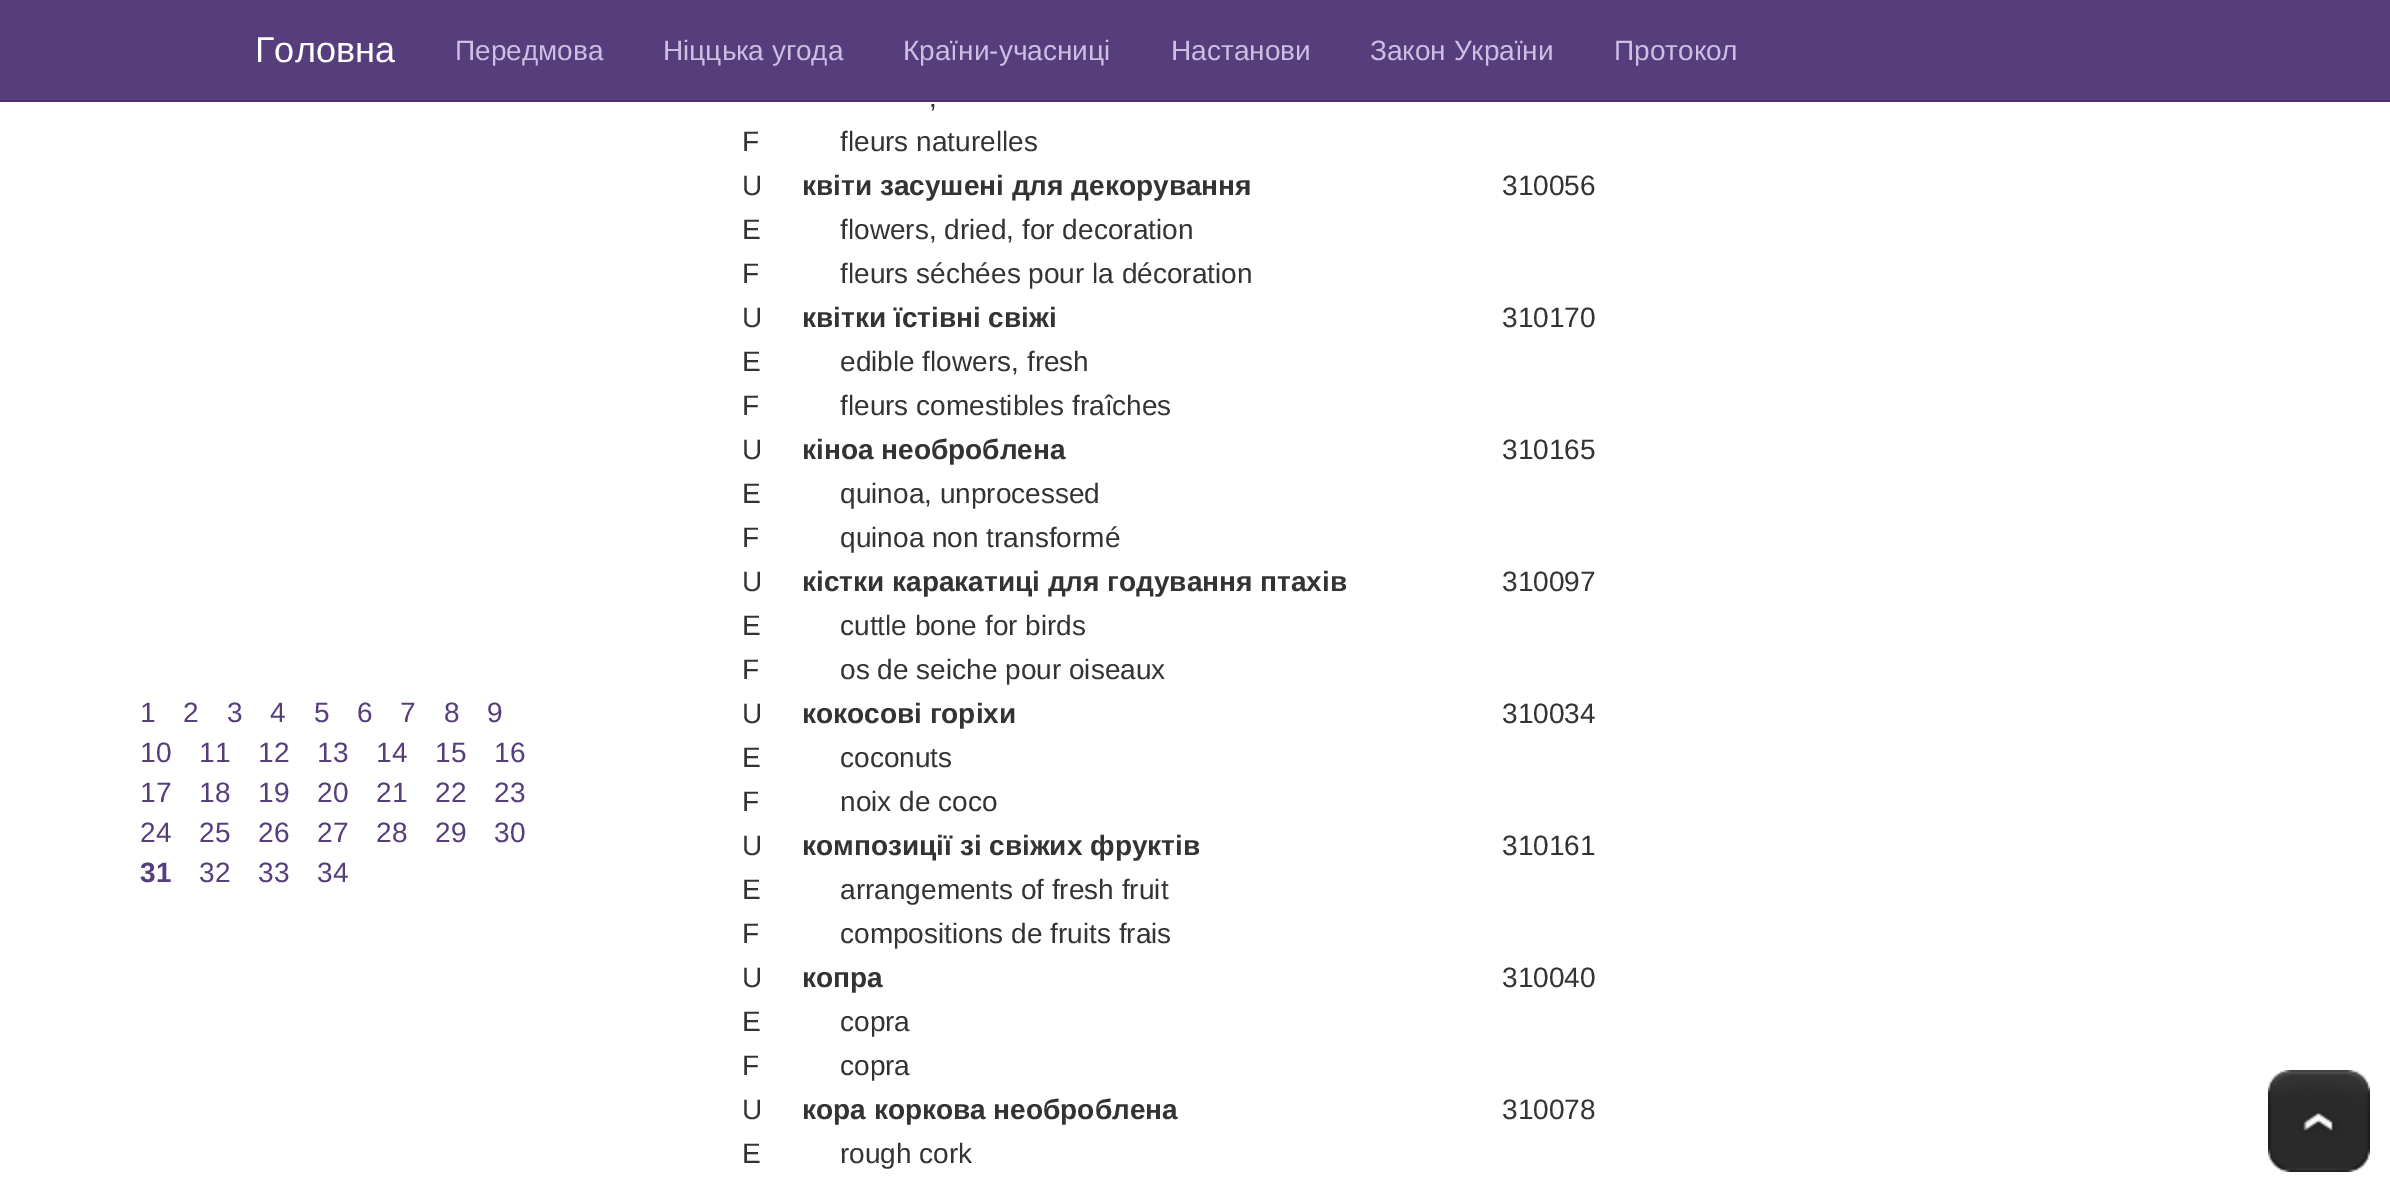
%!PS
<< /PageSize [2390 1192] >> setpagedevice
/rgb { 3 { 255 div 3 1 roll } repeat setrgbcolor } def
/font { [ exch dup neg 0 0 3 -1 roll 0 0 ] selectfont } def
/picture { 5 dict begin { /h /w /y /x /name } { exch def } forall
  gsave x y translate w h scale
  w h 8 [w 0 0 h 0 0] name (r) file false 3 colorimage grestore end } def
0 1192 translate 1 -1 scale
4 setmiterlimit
255 255 255 rgb
0 0 2390 1192 rectfill
86 61 124 rgb
0 0 2390 100 rectfill
70 50 101 rgb
0 100 2390 2 rectfill
(img/1.rgb) 2268 1070 102 102 picture
/LiberationSans-Regular 36 font
255 255 255 rgb
255 62 moveto (Головна) show
/LiberationSans-Regular 28 font
205 191 227 rgb
[
  [(Передмова) 455 60]
  [(Ніццька угода) 663 60]
  [(Країни-учасниці) 903 60]
  [(Настанови) 1171 60]
  [(Закон України) 1370 60]
  [(Протокол) 1614 60]
] { aload pop moveto show } forall
86 61 124 rgb
[
  [(1) 140 722]
  [(2) 183 722]
  [(3) 227 722]
  [(4) 270 722]
  [(5) 314 722]
  [(6) 357 722]
  [(7) 400 722]
  [(8) 444 722]
  [(9) 487 722]
  [(10) 140 762]
  [(11) 199 762]
  [(12) 258 762]
  [(13) 317 762]
  [(14) 376 762]
  [(15) 435 762]
  [(16) 494 762]
  [(17) 140 802]
  [(18) 199 802]
  [(19) 258 802]
  [(20) 317 802]
  [(21) 376 802]
  [(22) 435 802]
  [(23) 494 802]
  [(24) 140 842]
  [(25) 199 842]
  [(26) 258 842]
  [(27) 317 842]
  [(28) 376 842]
  [(29) 435 842]
  [(30) 494 842]
] { aload pop moveto show } forall
/LiberationSans-Bold 28 font
140 882 moveto (31) show
/LiberationSans-Regular 28 font
[
  [(32) 199 882]
  [(33) 258 882]
  [(34) 317 882]
] { aload pop moveto show } forall
51 51 51 rgb
[
  [(,) 929 107]
  [(F) 742 151]
  [(fleurs naturelles) 840 151]
  [(U) 742 195]
] { aload pop moveto show } forall
/LiberationSans-Bold 28 font
802 195 moveto (квіти засушені для декорування) show
/LiberationSans-Regular 28 font
[
  [(310056) 1502 195]
  [(E) 742 239]
  [(flowers, dried, for decoration) 840 239]
  [(F) 742 283]
  [(fleurs séchées pour la décoration) 840 283]
  [(U) 742 327]
] { aload pop moveto show } forall
/LiberationSans-Bold 28 font
802 327 moveto (квітки їстівні свіжі) show
/LiberationSans-Regular 28 font
[
  [(310170) 1502 327]
  [(E) 742 371]
  [(edible flowers, fresh) 840 371]
  [(F) 742 415]
  [(fleurs comestibles fraîches) 840 415]
  [(U) 742 459]
] { aload pop moveto show } forall
/LiberationSans-Bold 28 font
802 459 moveto (кіноа необроблена) show
/LiberationSans-Regular 28 font
[
  [(310165) 1502 459]
  [(E) 742 503]
  [(quinoa, unprocessed) 840 503]
  [(F) 742 547]
  [(quinoa non transformé) 840 547]
  [(U) 742 591]
] { aload pop moveto show } forall
/LiberationSans-Bold 28 font
802 591 moveto (кістки каракатиці для годування птахів) show
/LiberationSans-Regular 28 font
[
  [(310097) 1502 591]
  [(E) 742 635]
  [(cuttle bone for birds) 840 635]
  [(F) 742 679]
  [(os de seiche pour oiseaux) 840 679]
  [(U) 742 723]
] { aload pop moveto show } forall
/LiberationSans-Bold 28 font
802 723 moveto (кокосові горіхи) show
/LiberationSans-Regular 28 font
[
  [(310034) 1502 723]
  [(E) 742 767]
  [(coconuts) 840 767]
  [(F) 742 811]
  [(noix de coco) 840 811]
  [(U) 742 855]
] { aload pop moveto show } forall
/LiberationSans-Bold 28 font
802 855 moveto (композиції зі свіжих фруктів) show
/LiberationSans-Regular 28 font
[
  [(310161) 1502 855]
  [(E) 742 899]
  [(arrangements of fresh fruit) 840 899]
  [(F) 742 943]
  [(compositions de fruits frais) 840 943]
  [(U) 742 987]
] { aload pop moveto show } forall
/LiberationSans-Bold 28 font
802 987 moveto (копра) show
/LiberationSans-Regular 28 font
[
  [(310040) 1502 987]
  [(E) 742 1031]
  [(copra) 840 1031]
  [(F) 742 1075]
  [(copra) 840 1075]
  [(U) 742 1119]
] { aload pop moveto show } forall
/LiberationSans-Bold 28 font
802 1119 moveto (кора коркова необроблена) show
/LiberationSans-Regular 28 font
[
  [(310078) 1502 1119]
  [(E) 742 1163]
  [(rough cork) 840 1163]
] { aload pop moveto show } forall
showpage
